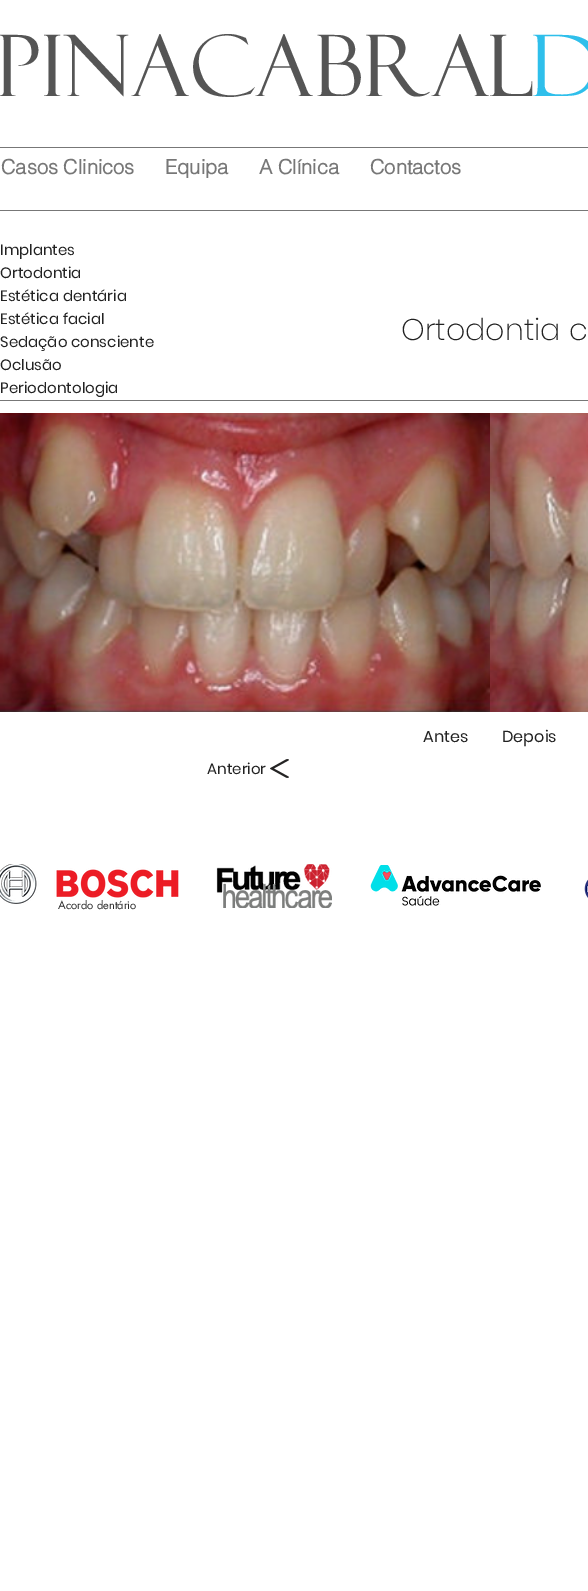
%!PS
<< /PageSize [588 1591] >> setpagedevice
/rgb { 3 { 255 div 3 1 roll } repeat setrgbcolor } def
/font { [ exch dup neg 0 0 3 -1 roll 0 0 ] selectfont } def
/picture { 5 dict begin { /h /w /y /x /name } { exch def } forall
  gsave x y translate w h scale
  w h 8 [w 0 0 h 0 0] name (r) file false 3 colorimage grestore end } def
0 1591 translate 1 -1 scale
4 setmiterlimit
255 255 255 rgb
0 0 588 1591 rectfill
119 119 119 rgb
0 147 588 1 rectfill
0 210 588 1 rectfill
(img/1.rgb) 0 413 490 299 picture
(img/2.rgb) 490 413 98 299 picture
0 400 588 1 rectfill
(img/3.rgb) 270 759 19 19 picture
(img/4.rgb) 0 864 179 40 picture
(img/5.rgb) 216 864 116 44 picture
(img/6.rgb) 370 865 171 41 picture
(img/7.rgb) 584 879 4 19 picture
/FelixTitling-Regular 85 font
85 85 85 rgb
-4 96 moveto (PINACABRAL) show
47 191 235 rgb
530 96 moveto (d) show
/helvetica-Bold 20 font
119 119 119 rgb
[
  [(Casos Clinicos) 1 174]
  [(Equipa) 165 174]
  [(A Clínica) 259 174]
  [(Contactos) 370 174]
] { aload pop moveto show } forall
/Poppins-Regular 15 font
34 34 34 rgb
[
  [(Implantes) 0 255]
  [(Ortodontia) 0 278]
  [(Estética dentária) 0 301]
  [(Estética facial) 0 324]
] { aload pop moveto show } forall
/Poppins-ExtraLight 30 font
401 340 moveto (Ortodontia c) show
/Poppins-Regular 15 font
[
  [(Sedação consciente) 0 347]
  [(Oclusão) 0 370]
  [(Periodontologia) 0 393]
] { aload pop moveto show } forall
/Poppins-Regular 16 font
423 742 moveto (Antes) show
502 742 moveto (Depois) show
/Poppins-Regular 15 font
207 774 moveto (Anterior) show
/futura-Regular 11 font
41 41 41 rgb
58 909 moveto (Acordo dentário) show
showpage
